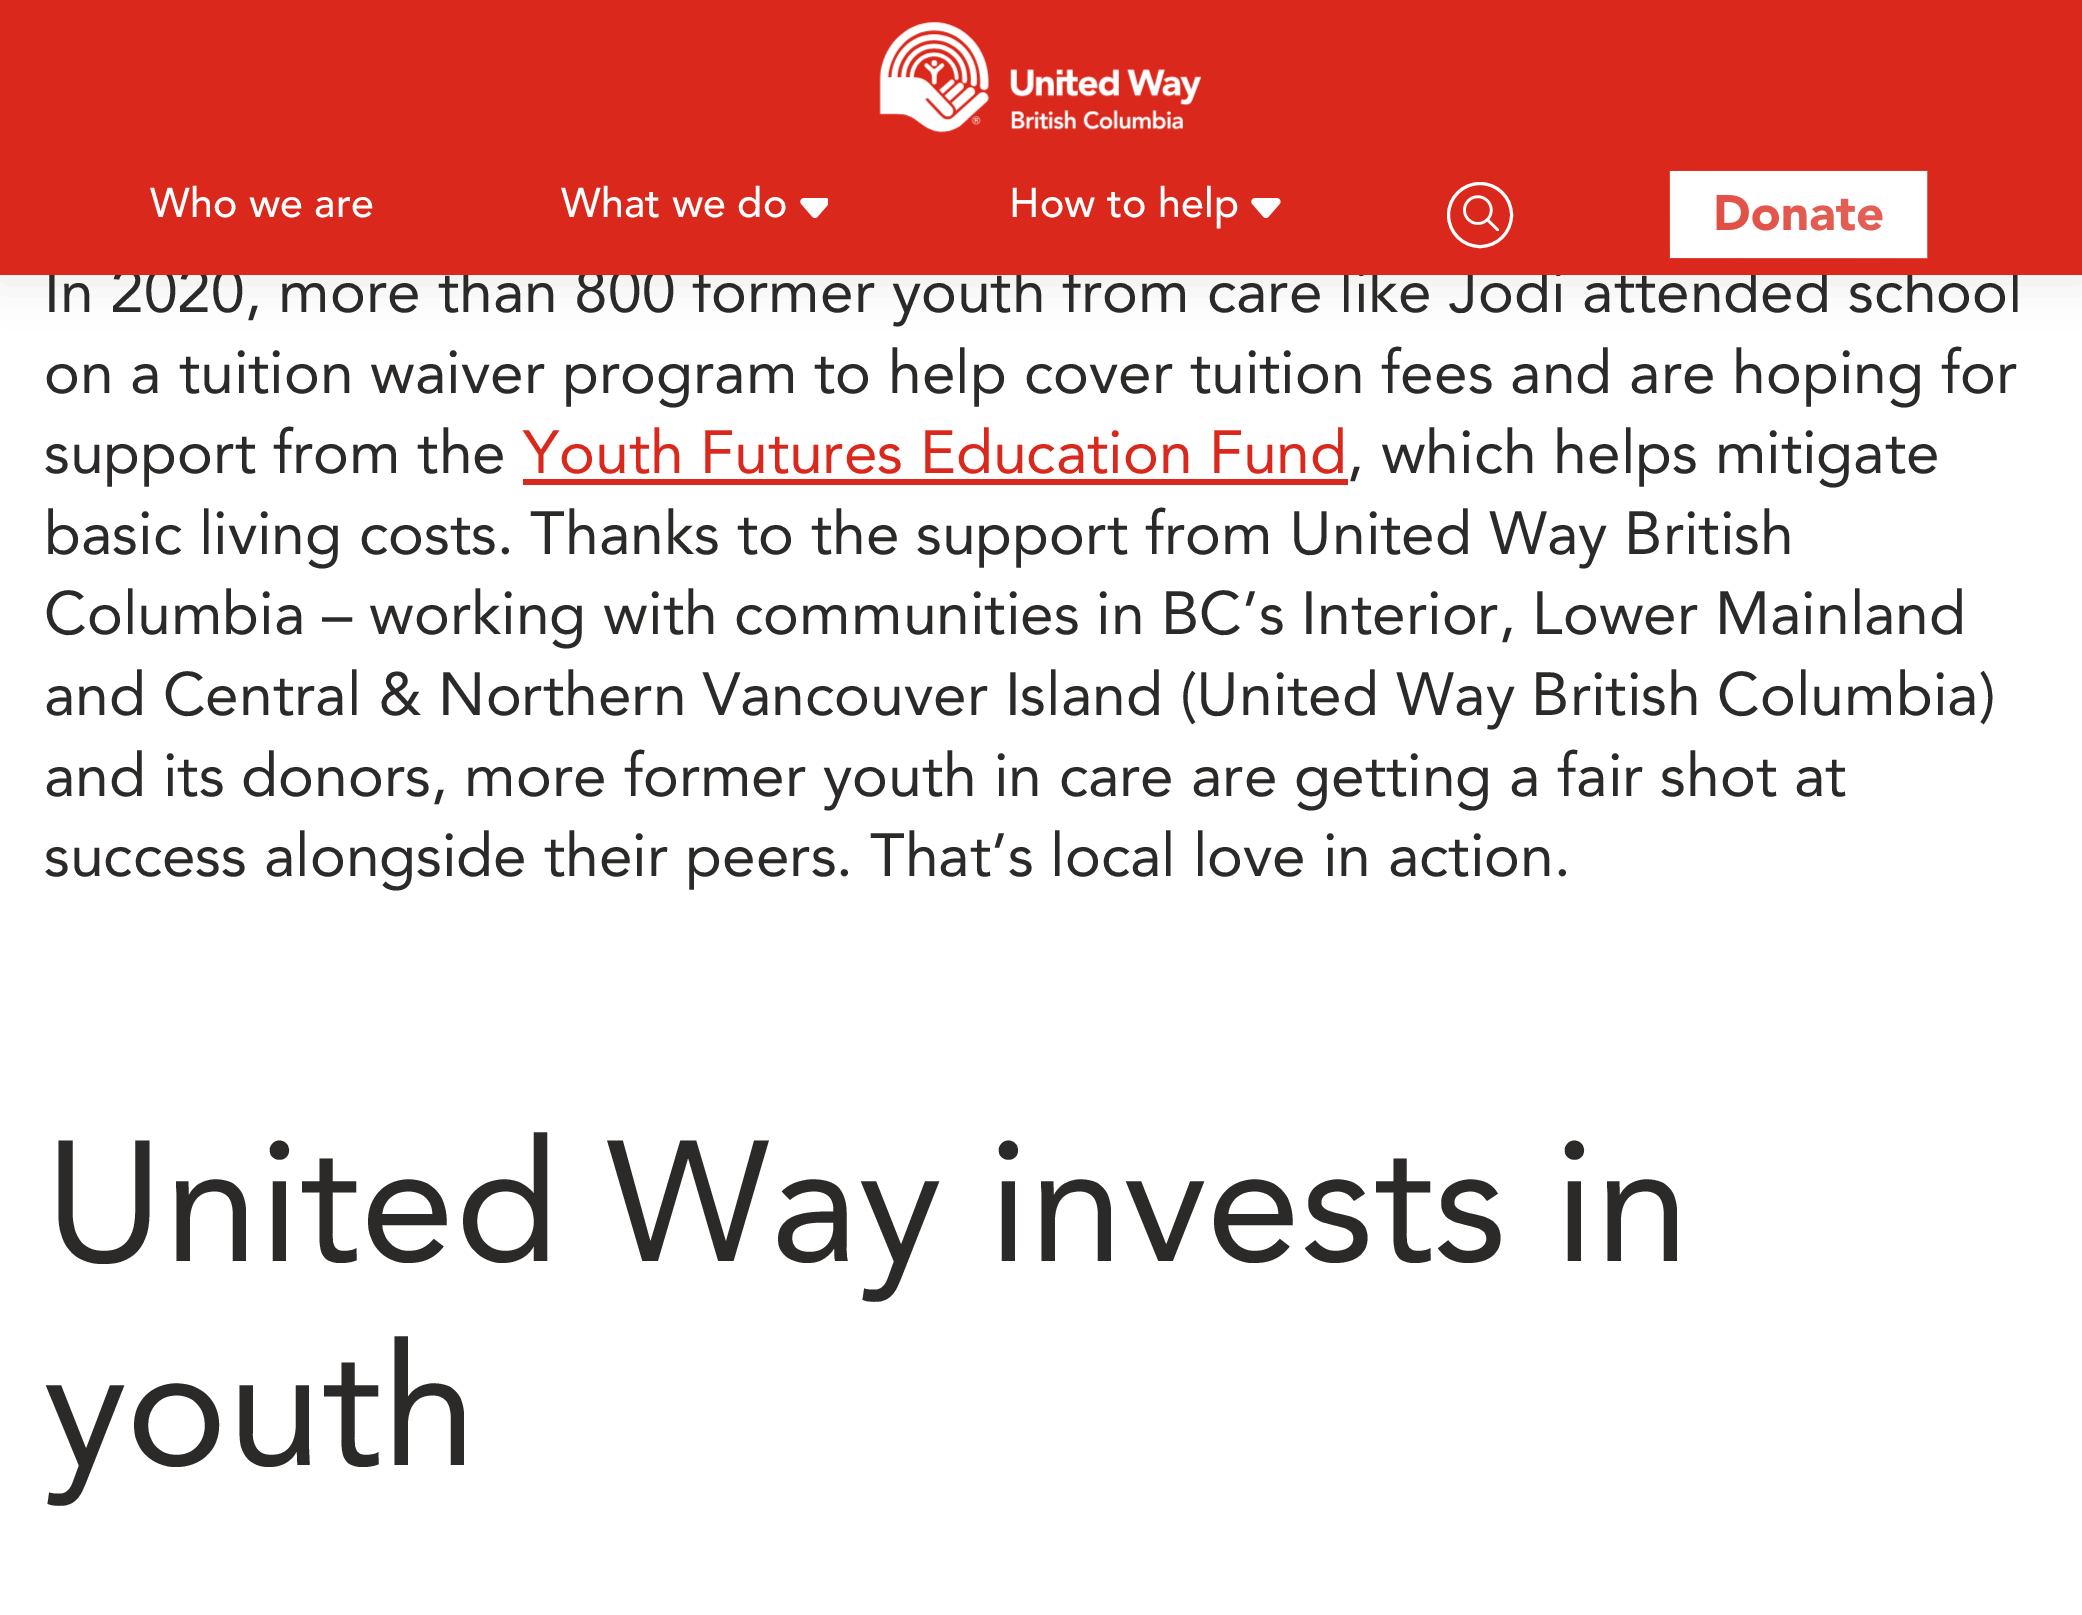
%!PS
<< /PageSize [2082 1615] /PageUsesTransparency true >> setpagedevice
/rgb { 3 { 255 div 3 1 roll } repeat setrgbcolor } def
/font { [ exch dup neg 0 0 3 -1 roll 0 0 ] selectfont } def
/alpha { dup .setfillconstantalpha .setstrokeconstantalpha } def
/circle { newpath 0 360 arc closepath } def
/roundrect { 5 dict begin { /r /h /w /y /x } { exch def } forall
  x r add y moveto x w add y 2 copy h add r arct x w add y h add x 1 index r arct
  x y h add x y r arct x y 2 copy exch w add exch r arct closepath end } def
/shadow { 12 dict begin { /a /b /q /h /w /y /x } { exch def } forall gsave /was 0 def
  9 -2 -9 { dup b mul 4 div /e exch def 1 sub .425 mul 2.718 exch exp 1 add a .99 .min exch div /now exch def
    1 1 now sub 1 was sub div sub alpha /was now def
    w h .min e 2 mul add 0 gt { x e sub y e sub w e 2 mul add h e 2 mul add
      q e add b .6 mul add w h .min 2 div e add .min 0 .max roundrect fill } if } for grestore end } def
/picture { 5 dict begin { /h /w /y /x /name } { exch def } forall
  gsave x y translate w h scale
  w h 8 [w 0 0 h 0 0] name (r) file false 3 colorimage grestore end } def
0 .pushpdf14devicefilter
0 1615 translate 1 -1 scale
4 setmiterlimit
255 255 255 rgb
0 0 2082 1615 rectfill
0 0 0 rgb
0 6 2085 275 0 22 0.08 shadow
218 41 28 rgb
523 479 825 6 rectfill
/Avenir-Regular 60.5 font
44 42 41 rgb
44 312 moveto (In 2020, more than 800 former youth from care like Jodi attended school) show
218 41 28 rgb
0 0 2082 275 rectfill
255 255 255 rgb
1670 171 257 87 rectfill
/Avenir-Black 49.5 font
218 41 28 rgb
1713 230 moveto (Donate) show
(img/5.rgb) 1669 170 259 89 picture
(img/4.rgb) 1463 195 36 36 picture
255 255 255 rgb
3 setlinewidth
1480 215 31.5 circle stroke
(img/3.rgb) 1251 198 30 20 picture
(img/2.rgb) 800 198 28 20 picture
/Avenir-Medium 41.25 font
[
  [(How to help) 1009 217]
  [(What we do) 561 217]
  [(Who we are) 150 217]
] { aload pop moveto show } forall
(img/1.rgb) 879 22 323 111 picture
/Avenir-Regular 60.5 font
44 42 41 rgb
44 393 moveto (on a tuition waiver program to help cover tuition fees and are hoping for) show
44 473 moveto (support from the) show
218 41 28 rgb
523 473 moveto (Youth Futures Education Fund) show
44 42 41 rgb
[
  [(, which helps mitigate) 1347 473]
  [(basic living costs. Thanks to the support from United Way British) 44 554]
  [(Columbia – working with communities in BC’s Interior, Lower Mainland) 44 634]
  [(and Central & Northern Vancouver Island \(United Way British Columbia\)) 44 715]
  [(and its donors, more former youth in care are getting a fair shot at) 44 796]
  [(success alongside their peers. That’s local love in action.) 44 876]
] { aload pop moveto show } forall
/Avenir-Regular 170.5 font
44 1261 moveto (United Way invests in) show
44 1465 moveto (youth) show
.poppdf14devicefilter showpage
